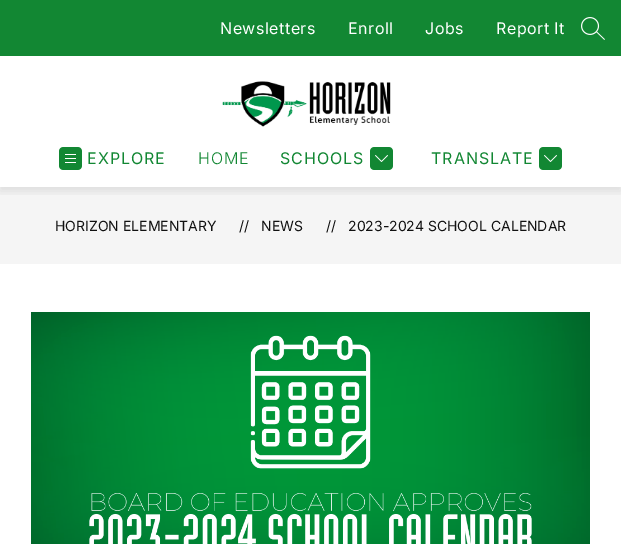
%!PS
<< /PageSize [621 544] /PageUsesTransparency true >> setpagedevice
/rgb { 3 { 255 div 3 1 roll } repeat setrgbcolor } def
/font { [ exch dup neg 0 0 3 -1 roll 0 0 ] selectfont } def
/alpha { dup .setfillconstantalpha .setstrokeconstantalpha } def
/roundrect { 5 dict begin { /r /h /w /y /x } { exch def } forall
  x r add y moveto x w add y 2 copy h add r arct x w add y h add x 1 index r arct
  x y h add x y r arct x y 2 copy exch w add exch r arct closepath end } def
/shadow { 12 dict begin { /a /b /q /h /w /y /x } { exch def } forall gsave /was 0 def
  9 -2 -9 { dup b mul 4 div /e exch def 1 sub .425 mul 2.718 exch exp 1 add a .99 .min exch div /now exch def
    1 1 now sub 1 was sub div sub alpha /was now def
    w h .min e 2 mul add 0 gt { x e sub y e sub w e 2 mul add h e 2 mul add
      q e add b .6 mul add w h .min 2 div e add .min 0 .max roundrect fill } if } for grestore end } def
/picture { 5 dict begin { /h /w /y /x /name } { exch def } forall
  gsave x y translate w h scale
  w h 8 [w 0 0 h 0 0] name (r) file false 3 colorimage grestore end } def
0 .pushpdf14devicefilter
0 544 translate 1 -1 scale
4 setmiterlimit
255 255 255 rgb
0 0 621 544 rectfill
245 245 245 rgb
0 187 621 77 rectfill
gsave
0 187 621 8 rectclip
0 0 0 rgb
0 4 621 187 0 5 0.1 shadow
grestore
18 135 51 rgb
0 0 621 56 rectfill
(img/1.rgb) 581 17 24 23 picture
(img/2.rgb) 222 81 169 46 picture
(img/3.rgb) 59 147 23 23 picture
(img/4.rgb) 370 147 23 23 picture
(img/4.rgb) 539 147 23 23 picture
(img/5.rgb) 31 312 559 232 picture
/Inter-Regular 16 font
255 255 255 rgb
220 34 moveto 0.5 0 (Newsletters) ashow
348 34 moveto 0.5 0 (Enroll) ashow
425 34 moveto 0.5 0 (Jobs) ashow
496 34 moveto 0.5 0 (Report It) ashow
18 135 51 rgb
87 164 moveto 1 0 (EXPLORE) ashow
/Inter-Light 16 font
198 164 moveto 1 0 (HOME) ashow
/Inter-Regular 16 font
280 164 moveto 1 0 (SCHOOLS) ashow
431 164 moveto 1 0 (TRANSLATE) ashow
/Inter-Regular 14 font
17 17 17 rgb
[
  [(HORIZON ELEMENTARY) 55 231]
  [(//) 239 231]
  [(NEWS) 261 231]
  [(//) 326 231]
  [(2023-2024 SCHOOL CALENDAR) 348 231]
] { aload pop moveto show } forall
.poppdf14devicefilter showpage
